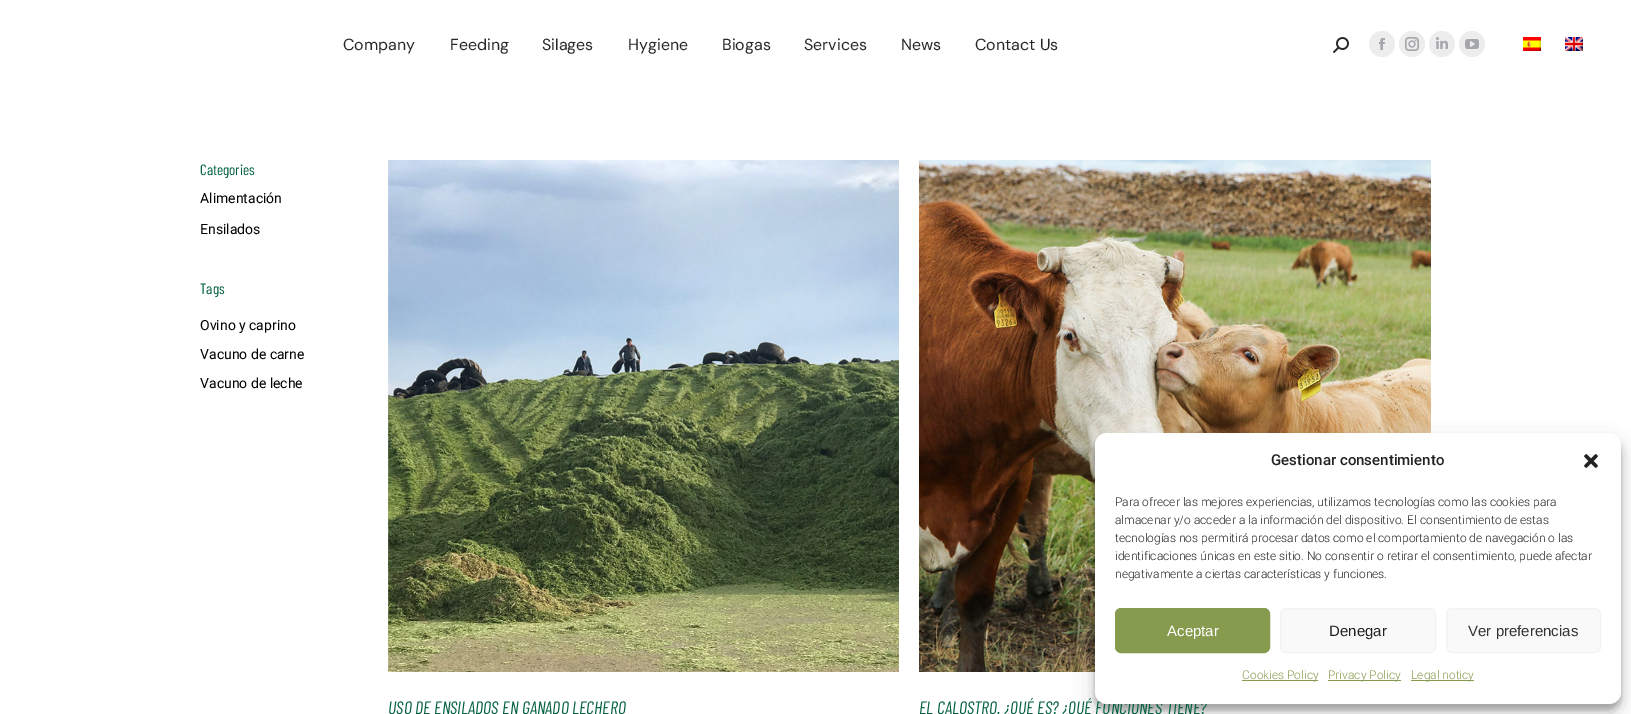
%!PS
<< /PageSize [1631 714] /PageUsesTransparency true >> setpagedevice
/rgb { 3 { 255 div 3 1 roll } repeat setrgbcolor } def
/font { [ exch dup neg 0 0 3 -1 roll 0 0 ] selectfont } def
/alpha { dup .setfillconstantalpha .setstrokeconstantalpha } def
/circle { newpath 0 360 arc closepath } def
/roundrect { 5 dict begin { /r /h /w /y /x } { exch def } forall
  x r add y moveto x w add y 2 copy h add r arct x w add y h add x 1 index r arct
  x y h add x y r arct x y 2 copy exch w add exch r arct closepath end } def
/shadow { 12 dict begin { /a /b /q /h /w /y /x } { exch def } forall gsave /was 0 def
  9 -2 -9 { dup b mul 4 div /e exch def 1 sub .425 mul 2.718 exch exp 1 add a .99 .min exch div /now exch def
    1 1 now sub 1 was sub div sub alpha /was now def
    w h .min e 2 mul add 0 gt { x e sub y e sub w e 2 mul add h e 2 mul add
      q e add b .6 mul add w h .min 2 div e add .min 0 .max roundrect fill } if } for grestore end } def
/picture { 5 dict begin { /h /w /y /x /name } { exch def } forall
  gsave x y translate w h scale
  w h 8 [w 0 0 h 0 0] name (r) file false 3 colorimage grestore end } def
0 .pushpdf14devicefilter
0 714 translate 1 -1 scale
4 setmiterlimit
255 255 255 rgb
0 0 1631 714 rectfill
(img/1.rgb) 1333 37 16 16 picture
237 237 238 rgb
1382 44 13 circle fill
(img/2.rgb) 1379 38 6 12 picture
1412 44 13 circle fill
(img/3.rgb) 1405 37 14 14 picture
1442 44 13 circle fill
(img/4.rgb) 1436 37 12 12 picture
1472 44 13 circle fill
(img/5.rgb) 1465 39 14 10 picture
(img/6.rgb) 1523 37 18 14 picture
(img/7.rgb) 1565 37 18 14 picture
(img/8.rgb) 388 160 511 512 picture
(img/9.rgb) 919 160 512 512 picture
0 0 0 rgb
1095 439 526 271 12 3 0.23 shadow
1095 443 526 271 12 10 0.19 shadow
/DMSans-Regular 16 font
40 40 40 rgb
[
  [(Company) 343 50]
  [(Feeding) 450 50]
  [(Silages) 542 50]
  [(Hygiene) 628 50]
  [(Biogas) 722 50]
  [(Services) 804 50]
  [(News) 901 50]
  [(Contact Us) 975 50]
] { aload pop moveto show } forall
/BarlowCondensed-Regular 15 font
5 98 65 rgb
200 175 moveto (Categories) show
/Roboto-Regular 14 font
0 0 0 rgb
200 203 moveto (Alimentación) show
200 234 moveto (Ensilados) show
/BarlowCondensed-Regular 15 font
5 98 65 rgb
200 294 moveto (Tags) show
/Roboto-Regular 14 font
0 0 0 rgb
[
  [(Ovino y caprino) 200 330]
  [(Vacuno de carne) 200 359]
  [(Vacuno de leche) 200 388]
] { aload pop moveto show } forall
/BarlowCondensed-Italic 18 font
5 98 65 rgb
388 714 moveto (USO DE ENSILADOS EN GANADO LECHERO) show
919 714 moveto (EL CALOSTRO. ¿QUÉ ES? ¿QUÉ FUNCIONES TIENE?) show
255 255 255 rgb
1095 433 526 271 12 roundrect fill
/Roboto-Medium 15 font
34 34 34 rgb
1271 465 moveto (Gestionar consentimiento) show
(img/10.rgb) 1584 454 14 14 picture
/Roboto-Light 12 font
[
  [(Para ofrecer las mejores experiencias, utilizamos tecnologías como las cookies para) 1115 506]
  [(almacenar y/o acceder a la información del dispositivo. El consentimiento de estas) 1115 524]
  [(tecnologías nos permitirá procesar datos como el comportamiento de navegación o las) 1115 542]
  [(identificaciones únicas en este sitio. No consentir o retirar el consentimiento, puede afectar) 1115 560]
  [(negativamente a ciertas características y funciones.) 1115 578]
] { aload pop moveto show } forall
135 155 78 rgb
1115.5 608.5 154 44 5.5 roundrect gsave fill grestore
stroke
/LiberationSans-Regular 15 font
255 255 255 rgb
1167 636 moveto (Aceptar) show
249 249 249 rgb
1280.5 608.5 155 44 5.5 roundrect gsave fill grestore
242 242 242 rgb
stroke
34 34 34 rgb
1329 636 moveto (Denegar) show
249 249 249 rgb
1446.5 608.5 154 44 5.5 roundrect gsave fill grestore
242 242 242 rgb
stroke
51 51 51 rgb
1468 636 moveto (Ver preferencias) show
135 155 78 rgb
1242 680 76 1 rectfill
/Roboto-Light 12 font
1242 679 moveto (Cookies Policy) show
1328 680 73 1 rectfill
1328 679 moveto (Privacy Policy) show
1411 680 63 1 rectfill
1411 679 moveto (Legal noticy) show
.poppdf14devicefilter showpage
